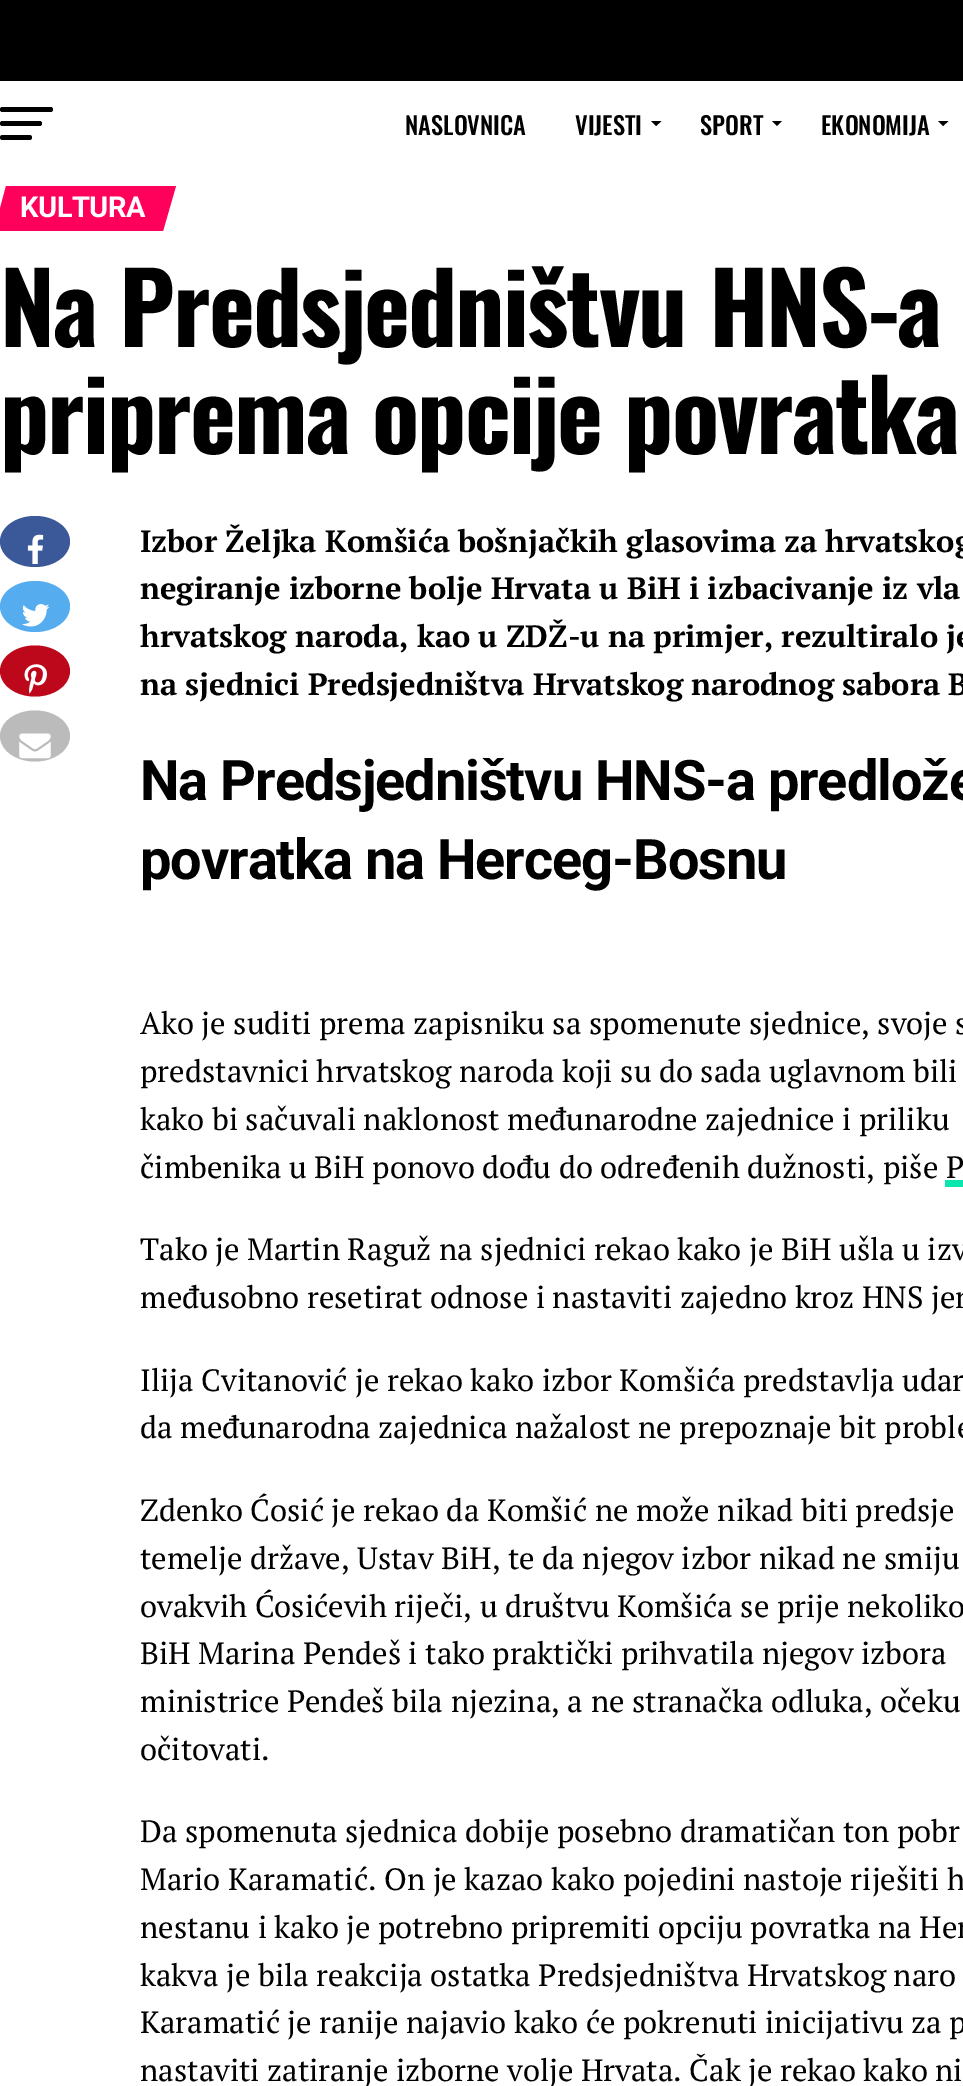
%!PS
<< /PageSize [963 2086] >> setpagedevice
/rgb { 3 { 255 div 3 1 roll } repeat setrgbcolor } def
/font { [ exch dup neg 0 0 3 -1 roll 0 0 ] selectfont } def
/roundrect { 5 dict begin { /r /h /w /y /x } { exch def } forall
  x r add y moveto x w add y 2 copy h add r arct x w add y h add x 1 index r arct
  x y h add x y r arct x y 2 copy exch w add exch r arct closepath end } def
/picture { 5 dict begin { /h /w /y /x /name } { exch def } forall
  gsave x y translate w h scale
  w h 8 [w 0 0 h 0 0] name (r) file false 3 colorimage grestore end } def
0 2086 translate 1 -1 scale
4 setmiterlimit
255 255 255 rgb
0 0 963 2086 rectfill
0 0 0 rgb
0 0 963 81 rectfill
0 107 53 5 2.5 roundrect fill
0 121 42 5 2.5 roundrect fill
0 135 32 5 2.5 roundrect fill
651 121 moveto 661.5 121 lineto 656 126 lineto closepath fill
772 121 moveto 782 121 lineto 777 126 lineto closepath fill
938 121 moveto 948.5 121 lineto 943 126 lineto closepath fill
255 0 91 rgb
6 186 moveto 176 186 lineto 163 231 lineto -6 231 lineto closepath fill
59 89 152 rgb
35 516 moveto 54.5 516 70 527.5 70 541.5 curveto 70 555.5 54.5 567 35 567 curveto 15.5 567 0 555.5 0 541.5 curveto 0 527.5 15.5 516 35 516 curveto closepath fill
(img/1.rgb) 27 534 17 30 picture
85 172 238 rgb
35 581 moveto 54.5 581 70 592.5 70 606.5 curveto 70 620.5 54.5 632 35 632 curveto 15.5 632 0 620.5 0 606.5 curveto 0 592.5 15.5 581 35 581 curveto closepath fill
(img/2.rgb) 22 604 28 23 picture
189 8 28 rgb
35 645.5 moveto 54.5 645.5 70 657 70 671 curveto 70 685 54.5 696.5 35 696.5 curveto 15.5 696.5 0 685 0 671 curveto 0 657 15.5 645.5 35 645.5 curveto closepath fill
(img/3.rgb) 24 664 23 30 picture
187 187 187 rgb
35 710.5 moveto 54.5 710.5 70 722 70 736 curveto 70 750 54.5 761.5 35 761.5 curveto 15.5 761.5 0 750 0 736 curveto 0 722 15.5 710.5 35 710.5 curveto closepath fill
(img/4.rgb) 19 733 32 26 picture
/Oswald-Medium 24.5 font
0 0 0 rgb
[
  [(NASLOVNICA) 405 135]
  [(VIJESTI) 575 135]
  [(SPORT) 700 135]
  [(EKONOMIJA) 821 135]
] { aload pop moveto show } forall
/Roboto-Bold 29 font
255 255 255 rgb
20 217 moveto -0.5 0 (KULTURA) ashow
/Oswald-Bold 98 font
0 0 0 rgb
0 347 moveto -2 0 (Na Predsjedništvu HNS-a) ashow
0 454 moveto -2 0 (priprema opcije povratka) ashow
/PTSerif-Bold 30.8 font
[
  [(Izbor Željka Komšića bošnjačkih glasovima za hrvatskog) 140 552]
  [(negiranje izborne bolje Hrvata u BiH i izbacivanje iz vla) 140 599]
  [(hrvatskog naroda, kao u ZDŽ-u na primjer, rezultiralo je) 140 647]
  [(na sjednici Predsjedništva Hrvatskog narodnog sabora B) 140 695]
] { aload pop moveto show } forall
/Roboto-Bold 56 font
140 800 moveto -1.1 0 (Na Predsjedništvu HNS-a predlože) ashow
140 879 moveto -1.1 0 (povratka na Herceg-Bosnu) ashow
/PTSerif-Regular 30.8 font
[
  [(Ako je suditi prema zapisniku sa spomenute sjednice, svoje s) 140 1034]
  [(predstavnici hrvatskog naroda koji su do sada uglavnom bili) 140 1082]
  [(kako bi sačuvali naklonost međunarodne zajednice i priliku) 140 1130]
  [(čimbenika u BiH ponovo dođu do određenih dužnosti, piše P) 140 1178]
] { aload pop moveto show } forall
11 230 175 rgb
945 1180 18 7 rectfill
0 0 0 rgb
[
  [(Tako je Martin Raguž na sjednici rekao kako je BiH ušla u izv) 140 1260]
  [(međusobno resetirat odnose i nastaviti zajedno kroz HNS jer) 140 1308]
  [(Ilija Cvitanović je rekao kako izbor Komšića predstavlja udar) 140 1391]
  [(da međunarodna zajednica nažalost ne prepoznaje bit proble) 140 1438]
  [(Zdenko Ćosić je rekao da Komšić ne može nikad biti predsje) 140 1521]
  [(temelje države, Ustav BiH, te da njegov izbor nikad ne smiju) 140 1569]
  [(ovakvih Ćosićevih riječi, u društvu Komšića se prije nekoliko) 140 1617]
  [(BiH Marina Pendeš i tako praktički prihvatila njegov izbora) 140 1664]
  [(ministrice Pendeš bila njezina, a ne stranačka odluka, očeku) 140 1712]
  [(očitovati.) 140 1760]
  [(Da spomenuta sjednica dobije posebno dramatičan ton pobr) 140 1842]
  [(Mario Karamatić. On je kazao kako pojedini nastoje riješiti h) 140 1890]
  [(nestanu i kako je potrebno pripremiti opciju povratka na Her) 140 1938]
  [(kakva je bila reakcija ostatka Predsjedništva Hrvatskog naro) 140 1986]
  [(Karamatić je ranije najavio kako će pokrenuti inicijativu za p) 140 2033]
  [(nastaviti zatiranje izborne volje Hrvata. Čak je rekao kako ni) 140 2081]
] { aload pop moveto show } forall
showpage
